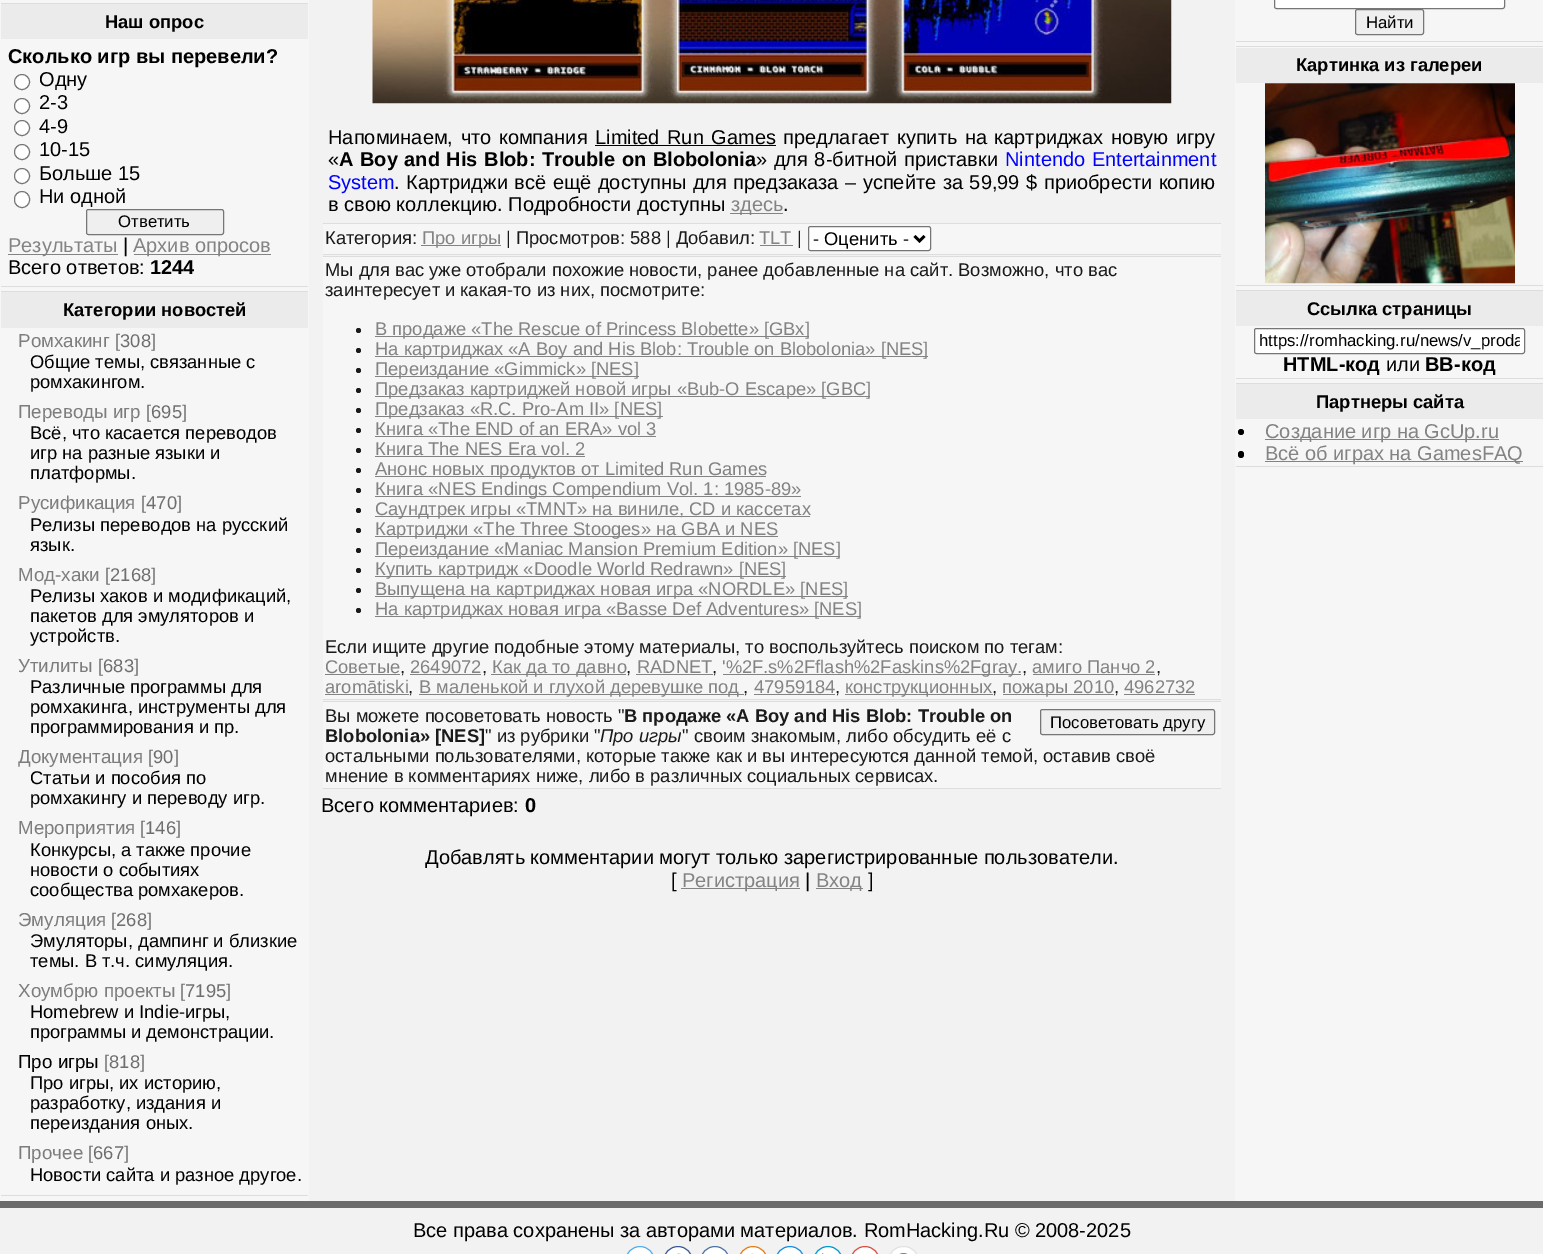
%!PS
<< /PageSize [1543 1254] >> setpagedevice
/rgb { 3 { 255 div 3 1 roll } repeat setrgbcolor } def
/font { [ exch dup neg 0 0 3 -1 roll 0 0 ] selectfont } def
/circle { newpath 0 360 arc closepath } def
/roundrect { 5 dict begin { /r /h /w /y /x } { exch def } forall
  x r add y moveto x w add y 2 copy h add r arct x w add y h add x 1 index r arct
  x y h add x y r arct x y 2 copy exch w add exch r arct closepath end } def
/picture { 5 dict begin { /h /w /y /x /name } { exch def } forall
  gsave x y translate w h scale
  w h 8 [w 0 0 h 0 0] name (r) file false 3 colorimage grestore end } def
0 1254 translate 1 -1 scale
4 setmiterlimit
242 242 242 rgb
0 0 1543 1254 rectfill
[
  [0 0 309 1201 246 246 246]
  [1 3 307 1 221 221 221]
  [1 286 307 1 221 221 221]
  [1 4 307 35 235 235 235]
] { aload pop rgb rectfill } forall
255 255 255 rgb
22 82 7.5 circle gsave fill grestore
118 118 118 rgb
stroke
255 255 255 rgb
22 106 7.5 circle gsave fill grestore
118 118 118 rgb
stroke
255 255 255 rgb
22 128 7.5 circle gsave fill grestore
118 118 118 rgb
stroke
255 255 255 rgb
22 152 7.5 circle gsave fill grestore
118 118 118 rgb
stroke
255 255 255 rgb
22 176 7.5 circle gsave fill grestore
118 118 118 rgb
stroke
255 255 255 rgb
14.5 191.5 15 16 7.5 roundrect gsave fill grestore
118 118 118 rgb
stroke
239 239 239 rgb
86.5 209.5 137 25 2 roundrect gsave fill grestore
118 118 118 rgb
stroke
[
  [8 254 110 1 131 131 131]
  [134 254 137 1 131 131 131]
  [1 291 307 1 221 221 221]
  [1 1195 307 1 221 221 221]
  [1 292 307 36 235 235 235]
] { aload pop rgb rectfill } forall
(img/1.rgb) 372 0 800 104 picture
[
  [595 145 181 1 0 0 0]
  [730 213 53 1 131 131 131]
  [323 224 898 30 246 246 246]
  [323 223 898 1 221 221 221]
  [323 254 898 1 221 221 221]
  [421 245 80 1 131 131 131]
  [760 245 33 1 131 131 131]
] { aload pop rgb rectfill } forall
255 255 255 rgb
808.5 226.5 122 24 2 roundrect gsave fill grestore
118 118 118 rgb
stroke
0 0 0 rgb
2.5 setlinewidth
914.5 236 moveto 919.5 241 lineto 924.5 236 lineto stroke
[
  [323 257 898 442 246 246 246]
  [323 256 898 1 221 221 221]
  [323 699 898 1 221 221 221]
] { aload pop rgb rectfill } forall
26 26 26 rgb
358.5 330.5 2.5 circle fill
131 131 131 rgb
375 336 434 1 rectfill
26 26 26 rgb
358.5 350.5 2.5 circle fill
131 131 131 rgb
375 356 553 1 rectfill
26 26 26 rgb
358.5 370.5 2.5 circle fill
131 131 131 rgb
375 376 264 1 rectfill
26 26 26 rgb
358.5 390.5 2.5 circle fill
131 131 131 rgb
375 396 495 1 rectfill
26 26 26 rgb
358.5 410.5 2.5 circle fill
131 131 131 rgb
375 416 288 1 rectfill
26 26 26 rgb
358.5 430.5 2.5 circle fill
131 131 131 rgb
375 436 281 1 rectfill
26 26 26 rgb
358.5 450.5 2.5 circle fill
131 131 131 rgb
375 456 210 1 rectfill
26 26 26 rgb
358.5 470.5 2.5 circle fill
131 131 131 rgb
375 476 391 1 rectfill
26 26 26 rgb
358.5 490.5 2.5 circle fill
131 131 131 rgb
375 496 426 1 rectfill
26 26 26 rgb
358.5 510.5 2.5 circle fill
131 131 131 rgb
375 516 435 1 rectfill
26 26 26 rgb
358.5 530.5 2.5 circle fill
131 131 131 rgb
375 536 403 1 rectfill
26 26 26 rgb
358.5 550.5 2.5 circle fill
131 131 131 rgb
375 556 465 1 rectfill
26 26 26 rgb
358.5 570.5 2.5 circle fill
131 131 131 rgb
375 576 411 1 rectfill
26 26 26 rgb
358.5 590.5 2.5 circle fill
131 131 131 rgb
375 596 473 1 rectfill
26 26 26 rgb
358.5 610.5 2.5 circle fill
[
  [375 616 486 1 131 131 131]
  [325 674 75 1 131 131 131]
  [410 674 71 1 131 131 131]
  [491 674 135 1 131 131 131]
  [636 674 77 1 131 131 131]
  [723 674 298 1 131 131 131]
  [1033 674 122 1 131 131 131]
  [325 694 84 1 131 131 131]
  [419 694 325 1 131 131 131]
  [754 694 81 1 131 131 131]
  [845 694 148 1 131 131 131]
  [1003 694 111 1 131 131 131]
  [1124 694 71 1 131 131 131]
  [323 702 898 86 246 246 246]
  [323 701 898 1 221 221 221]
  [323 788 898 1 221 221 221]
] { aload pop rgb rectfill } forall
239 239 239 rgb
1040.5 709.5 174 25 2 roundrect gsave fill grestore
118 118 118 rgb
1 setlinewidth
stroke
[
  [681 888 119 1 131 131 131]
  [816 888 47 1 131 131 131]
  [1235 0 308 1201 246 246 246]
  [1236 41 307 1 221 221 221]
] { aload pop rgb rectfill } forall
255 255 255 rgb
1274.5 -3.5 230 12 2 roundrect gsave fill grestore
118 118 118 rgb
stroke
239 239 239 rgb
1355.5 9.5 68 25 2 roundrect gsave fill grestore
118 118 118 rgb
stroke
[
  [1236 46 307 1 221 221 221]
  [1236 285 307 1 221 221 221]
  [1236 48 307 35 235 235 235]
] { aload pop rgb rectfill } forall
(img/2.rgb) 1265 83 250 201 picture
[
  [1236 290 307 1 221 221 221]
  [1236 378 307 1 221 221 221]
  [1236 291 307 35 235 235 235]
] { aload pop rgb rectfill } forall
255 255 255 rgb
1254.5 328.5 270 25 2 roundrect gsave fill grestore
118 118 118 rgb
stroke
[
  [1236 383 307 1 221 221 221]
  [1236 466 307 1 221 221 221]
  [1236 384 307 35 235 235 235]
] { aload pop rgb rectfill } forall
0 0 0 rgb
1241 432 3 circle fill
131 131 131 rgb
1265 439 234 1 rectfill
0 0 0 rgb
1238 451 6 7 3 roundrect fill
131 131 131 rgb
1265 461 258 1 rectfill
107 107 107 rgb
0 1201 1543 7 rectfill
255 255 255 rgb
625.5 1246.5 29 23 14.5 roundrect gsave fill grestore
85 172 238 rgb
stroke
255 255 255 rgb
663.5 1246.5 29 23 14.5 roundrect gsave fill grestore
59 89 152 rgb
stroke
(img/3.rgb) 677 1253 4 1 picture
255 255 255 rgb
700.5 1246.5 29 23 14.5 roundrect gsave fill grestore
77 117 163 rgb
stroke
255 255 255 rgb
738.5 1246.5 29 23 14.5 roundrect gsave fill grestore
230 126 23 rgb
stroke
(img/4.rgb) 751 1253 3 1 picture
255 255 255 rgb
775.5 1246.5 29 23 14.5 roundrect gsave fill grestore
22 141 226 rgb
stroke
255 255 255 rgb
813.5 1246.5 29 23 14.5 roundrect gsave fill grestore
0 153 204 rgb
stroke
(img/5.rgb) 821 1253 3 1 picture
255 255 255 rgb
850.5 1246.5 29 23 14.5 roundrect gsave fill grestore
220 78 65 rgb
stroke
255 255 255 rgb
888.5 1246.5 30 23 14.5 roundrect gsave fill grestore
224 226 230 rgb
stroke
129 133 139 rgb
3 setlinewidth
897.5 1254.5 12 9 6 roundrect stroke
/LiberationSans-Bold 18.35 font
0 0 0 rgb
105 28 moveto (Наш опрос) show
/LiberationSans-Bold 20 font
8 63 moveto (Сколько игр вы перевели?) show
/LiberationSans-Regular 20 font
[
  [(Одну) 39 86]
  [(2-3) 39 109]
  [(4-9) 39 133]
  [(10-15) 39 156]
  [(Больше 15) 39 180]
  [(Ни одной) 39 203]
] { aload pop moveto show } forall
/LiberationSans-Regular 16.7 font
118 227 moveto (Ответить) show
/LiberationSans-Regular 20 font
131 131 131 rgb
8 252 moveto (Результаты) show
0 0 0 rgb
123 252 moveto (|) show
131 131 131 rgb
133 252 moveto (Архив опросов) show
0 0 0 rgb
8 274 moveto (Всего ответов:) show
/LiberationSans-Bold 20 font
150 274 moveto (1244) show
/LiberationSans-Bold 18.35 font
63 316 moveto (Категории новостей) show
/LiberationSans-Regular 18.75 font
125 125 125 rgb
18 347 moveto (Ромхакинг) show
/LiberationSans-Regular 18.35 font
110 110 110 rgb
115 347 moveto ([308]) show
0 0 0 rgb
30 368 moveto (Общие темы, связанные с) show
30 388 moveto (ромхакингом.) show
/LiberationSans-Regular 18.75 font
125 125 125 rgb
18 418 moveto (Переводы игр) show
/LiberationSans-Regular 18.35 font
110 110 110 rgb
146 418 moveto ([695]) show
0 0 0 rgb
[
  [(Всё, что касается переводов) 30 439]
  [(игр на разные языки и) 30 459]
  [(платформы.) 30 479]
] { aload pop moveto show } forall
/LiberationSans-Regular 18.75 font
125 125 125 rgb
18 509 moveto (Русификация) show
/LiberationSans-Regular 18.35 font
110 110 110 rgb
141 509 moveto ([470]) show
0 0 0 rgb
30 531 moveto (Релизы переводов на русский) show
30 551 moveto (язык.) show
/LiberationSans-Regular 18.75 font
125 125 125 rgb
18 581 moveto (Мод-хаки) show
/LiberationSans-Regular 18.35 font
110 110 110 rgb
105 581 moveto ([2168]) show
0 0 0 rgb
[
  [(Релизы хаков и модификаций,) 30 602]
  [(пакетов для эмуляторов и) 30 622]
  [(устройств.) 30 642]
] { aload pop moveto show } forall
/LiberationSans-Regular 18.75 font
125 125 125 rgb
18 672 moveto (Утилиты) show
/LiberationSans-Regular 18.35 font
110 110 110 rgb
98 672 moveto ([683]) show
0 0 0 rgb
[
  [(Различные программы для) 30 693]
  [(ромхакинга, инструменты для) 30 713]
  [(программирования и пр.) 30 733]
] { aload pop moveto show } forall
/LiberationSans-Regular 18.75 font
125 125 125 rgb
18 763 moveto (Документация) show
/LiberationSans-Regular 18.35 font
110 110 110 rgb
148 763 moveto ([90]) show
0 0 0 rgb
30 784 moveto (Статьи и пособия по) show
30 804 moveto (ромхакингу и переводу игр.) show
/LiberationSans-Regular 18.75 font
125 125 125 rgb
18 834 moveto (Мероприятия) show
/LiberationSans-Regular 18.35 font
110 110 110 rgb
140 834 moveto ([146]) show
0 0 0 rgb
[
  [(Конкурсы, а также прочие) 30 856]
  [(новости о событиях) 30 876]
  [(сообщества ромхакеров.) 30 896]
] { aload pop moveto show } forall
/LiberationSans-Regular 18.75 font
125 125 125 rgb
18 926 moveto (Эмуляция) show
/LiberationSans-Regular 18.35 font
110 110 110 rgb
111 926 moveto ([268]) show
0 0 0 rgb
30 947 moveto (Эмуляторы, дампинг и близкие) show
30 967 moveto (темы. В т.ч. симуляция.) show
/LiberationSans-Regular 18.75 font
125 125 125 rgb
18 997 moveto (Хоумбрю проекты) show
/LiberationSans-Regular 18.35 font
110 110 110 rgb
180 997 moveto ([7195]) show
0 0 0 rgb
30 1018 moveto (Homebrew и Indie-игры,) show
30 1038 moveto (программы и демонстрации.) show
/LiberationSans-Regular 18.75 font
18 1068 moveto (Про игры) show
/LiberationSans-Regular 18.35 font
110 110 110 rgb
104 1068 moveto ([818]) show
0 0 0 rgb
[
  [(Про игры, их историю,) 30 1089]
  [(разработку, издания и) 30 1109]
  [(переиздания оных.) 30 1129]
] { aload pop moveto show } forall
/LiberationSans-Regular 18.75 font
125 125 125 rgb
18 1159 moveto (Прочее) show
/LiberationSans-Regular 18.35 font
110 110 110 rgb
88 1159 moveto ([667]) show
0 0 0 rgb
30 1181 moveto (Новости сайта и разное другое.) show
/LiberationSans-Regular 20 font
328 144 moveto 2 0 32 (Напоминаем, что компания) widthshow
595 144 moveto 2 0 32 (Limited Run Games) widthshow
783 144 moveto 2 0 32 (предлагает купить на картриджах новую игру) widthshow
328 166 moveto («) show
/LiberationSans-Bold 20 font
339 166 moveto 1 0 32 (A Boy and His Blob: Trouble on Blobolonia) widthshow
/LiberationSans-Regular 20 font
756 166 moveto 1 0 32 (» для 8-битной приставки) widthshow
0 0 255 rgb
1005 166 moveto 1 0 32 (Nintendo Entertainment) widthshow
328 189 moveto (System) show
0 0 0 rgb
394 189 moveto 1 0 32 (. Картриджи всё ещё доступны для предзаказа – успейте за 59,99 $ приобрести копию) widthshow
328 211 moveto (в свою коллекцию. Подробности доступны) show
131 131 131 rgb
731 211 moveto (здесь) show
0 0 0 rgb
783 211 moveto (.) show
/LiberationSans-Regular 18.35 font
26 26 26 rgb
325 244 moveto (Категория:) show
131 131 131 rgb
422 244 moveto (Про игры) show
26 26 26 rgb
506 244 moveto (| Просмотров: 588 | Добавил:) show
131 131 131 rgb
759 244 moveto (TLT) show
26 26 26 rgb
797 244 moveto (|) show
0 0 0 rgb
813 245 moveto (- Оценить -) show
26 26 26 rgb
325 276 moveto (Мы для вас уже отобрали похожие новости, ранее добавленные на сайт. Возможно, что вас) show
325 296 moveto (заинтересует и какая-то из них, посмотрите:) show
131 131 131 rgb
[
  [(В продаже «The Rescue of Princess Blobette» [GBx]) 375 335]
  [(На картриджах «A Boy and His Blob: Trouble on Blobolonia» [NES]) 375 355]
  [(Переиздание «Gimmick» [NES]) 375 375]
  [(Предзаказ картриджей новой игры «Bub-O Escape» [GBС]) 375 395]
  [(Предзаказ «R.C. Pro-Am II» [NES]) 375 415]
  [(Книга «The END of an ERA» vol 3) 375 435]
  [(Книга The NES Era vol. 2) 375 455]
  [(Анонс новых продуктов от Limited Run Games) 375 475]
  [(Книга «NES Endings Compendium Vol. 1: 1985-89») 375 495]
  [(Саундтрек игры «TMNT» на виниле, CD и кассетах) 375 515]
  [(Картриджи «The Three Stooges» на GBA и NES) 375 535]
  [(Переиздание «Maniac Mansion Premium Edition» [NES]) 375 555]
  [(Купить картридж «Doodle World Redrawn» [NES]) 375 575]
  [(Выпущена на картриджах новая игра «NORDLE» [NES]) 375 595]
  [(На картриджах новая игра «Basse Def Adventures» [NES]) 375 615]
] { aload pop moveto show } forall
26 26 26 rgb
325 653 moveto (Если ищите другие подобные этому материалы, то воспользуйтесь поиском по тегам:) show
131 131 131 rgb
325 673 moveto (Советыe) show
26 26 26 rgb
400 673 moveto (,) show
131 131 131 rgb
410 673 moveto (2649072) show
26 26 26 rgb
482 673 moveto (,) show
131 131 131 rgb
492 673 moveto (Как да то давно) show
26 26 26 rgb
626 673 moveto (,) show
131 131 131 rgb
637 673 moveto (RADNET) show
26 26 26 rgb
712 673 moveto (,) show
131 131 131 rgb
722 673 moveto ('%2F.s%2Fflash%2Faskins%2Fgray.) show
26 26 26 rgb
1022 673 moveto (,) show
131 131 131 rgb
1032 673 moveto (амиго Панчо 2) show
26 26 26 rgb
1156 673 moveto (,) show
131 131 131 rgb
325 693 moveto (aromātiski) show
26 26 26 rgb
408 693 moveto (,) show
131 131 131 rgb
419 693 moveto (В маленькой и глухой деревушке под) show
26 26 26 rgb
743 693 moveto (,) show
131 131 131 rgb
754 693 moveto (47959184) show
26 26 26 rgb
835 693 moveto (,) show
131 131 131 rgb
845 693 moveto (конструкционных) show
26 26 26 rgb
992 693 moveto (,) show
131 131 131 rgb
1002 693 moveto (пожары 2010) show
26 26 26 rgb
1114 693 moveto (,) show
131 131 131 rgb
1124 693 moveto (4962732) show
26 26 26 rgb
325 722 moveto (Вы можете посоветовать новость ") show
/LiberationSans-Bold 18.35 font
624 722 moveto (В продаже «A Boy and His Blob: Trouble on) show
/LiberationSans-Regular 16.7 font
0 0 0 rgb
1050 728 moveto (Посоветовать другу) show
/LiberationSans-Bold 18.35 font
26 26 26 rgb
325 742 moveto (Blobolonia» [NES]) show
/LiberationSans-Regular 18.35 font
485 742 moveto (" из рубрики ") show
/LiberationSans-Italic 18.35 font
600 742 moveto (Про игры) show
/LiberationSans-Regular 18.35 font
[
  [(" своим знакомым, либо обсудить её с) 682 742]
  [(остальными пользователями, которые также как и вы интересуются данной темой, оставив своё) 325 762]
  [(мнение в комментариях ниже, либо в различных социальных сервисах.) 325 782]
] { aload pop moveto show } forall
/LiberationSans-Regular 20 font
0 0 0 rgb
321 812 moveto (Всего комментариев:) show
/LiberationSans-Bold 20 font
525 812 moveto (0) show
/LiberationSans-Regular 20 font
425 864 moveto (Добавлять комментарии могут только зарегистрированные пользователи.) show
671 887 moveto ([) show
131 131 131 rgb
682 887 moveto (Регистрация) show
0 0 0 rgb
805 887 moveto (|) show
131 131 131 rgb
816 887 moveto (Вход) show
0 0 0 rgb
868 887 moveto (]) show
/LiberationSans-Regular 16.7 font
1366 28 moveto (Найти) show
/LiberationSans-Bold 18.35 font
1296 71 moveto (Картинка из галереи) show
1307 315 moveto (Ссылка страницы) show
gsave
1259 331 261 19 rectclip
/LiberationSans-Regular 16.7 font
1259 346 moveto (https://romhacking.ru/news/v_proda) show
grestore
/LiberationSans-Bold 20 font
1283 371 moveto (HTML-код) show
/LiberationSans-Regular 20 font
1386 371 moveto (или) show
/LiberationSans-Bold 20 font
1425 371 moveto (BB-код) show
/LiberationSans-Bold 18.35 font
1316 408 moveto (Партнеры сайта) show
/LiberationSans-Regular 20 font
131 131 131 rgb
1265 438 moveto (Создание игр на GcUp.ru) show
1265 460 moveto (Всё об играх на GamesFAQ) show
0 0 0 rgb
413 1237 moveto (Все права сохранены за авторами материалов. RomHacking.Ru © 2008-2025) show
showpage
